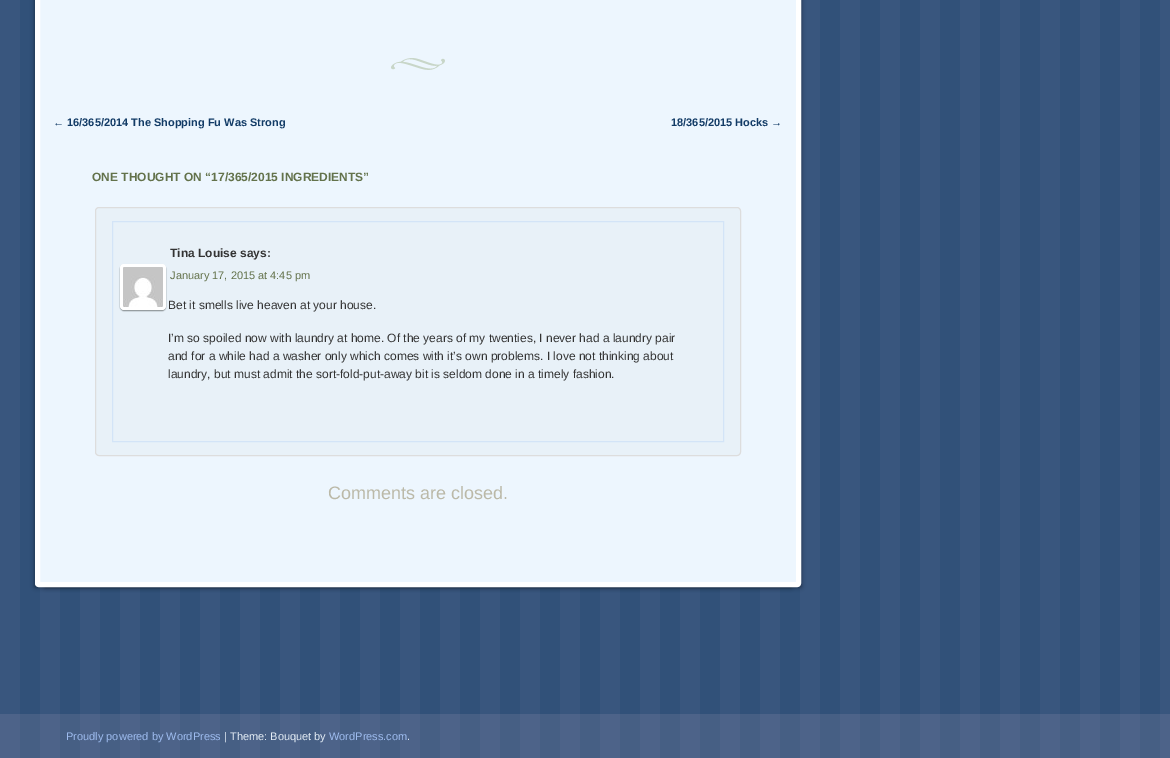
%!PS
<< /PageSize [1170 758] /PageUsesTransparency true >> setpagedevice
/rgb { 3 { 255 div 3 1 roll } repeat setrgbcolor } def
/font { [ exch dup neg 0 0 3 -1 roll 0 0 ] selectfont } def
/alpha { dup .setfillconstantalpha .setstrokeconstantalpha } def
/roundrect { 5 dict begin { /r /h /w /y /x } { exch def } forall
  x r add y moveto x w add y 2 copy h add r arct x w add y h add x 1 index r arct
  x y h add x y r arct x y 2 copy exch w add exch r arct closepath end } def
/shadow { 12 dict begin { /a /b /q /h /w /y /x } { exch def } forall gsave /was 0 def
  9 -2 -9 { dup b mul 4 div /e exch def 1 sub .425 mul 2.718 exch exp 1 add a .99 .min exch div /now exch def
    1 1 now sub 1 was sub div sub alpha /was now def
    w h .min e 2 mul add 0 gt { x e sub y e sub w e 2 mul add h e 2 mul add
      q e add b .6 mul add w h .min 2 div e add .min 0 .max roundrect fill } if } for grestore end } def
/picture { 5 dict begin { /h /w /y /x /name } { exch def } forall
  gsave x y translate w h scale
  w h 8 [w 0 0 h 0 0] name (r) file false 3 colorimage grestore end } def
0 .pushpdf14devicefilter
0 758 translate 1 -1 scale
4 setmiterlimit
255 255 255 rgb
0 0 1170 758 rectfill
(img/1.rgb) 0 0 1170 758 picture
0 0 0 rgb
35 -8 756 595 0 2.5 0.5 shadow
45 -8 756 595 0 2.5 0.5 shadow
237 246 254 rgb
37.5 -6.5 moveto 798.5 -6.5 lineto 798.5 583 lineto 798.5 584 798 584.5 797 584.5 curveto 39 584.5 lineto 38 584.5 37.5 584 37.5 583 curveto closepath gsave fill grestore
255 255 255 rgb
5 setlinewidth
stroke
(img/2.rgb) 391 58 54 12 picture
232 241 248 rgb
95.5 207.5 645 248 3.5 roundrect gsave fill grestore
221 221 221 rgb
1 setlinewidth
stroke
211 228 247 rgb
112.5 221.5 611 220 rectstroke
0 0 0 rgb
120 265 46 46 4 0.5 0.4 shadow
255 255 255 rgb
120 264 46 46 4 roundrect fill
(img/3.rgb) 123 267 40 40 picture
0.1 alpha
255 216 232 rgb
0 714 1170 44 rectfill
/LiberationSans-Bold 11 font
1 alpha
18 59 102 rgb
53 126 moveto (← 16/365/2014 The Shopping Fu Was Strong) show
671 126 moveto (18/365/2015 Hocks →) show
/LiberationSans-Bold 12 font
99 114 75 rgb
92 181 moveto (ONE THOUGHT ON “17/365/2015 INGREDIENTS”) show
51 51 51 rgb
170 257 moveto (Tina Louise says:) show
/LiberationSans-Regular 11 font
99 114 75 rgb
170 279 moveto (January 17, 2015 at 4:45 pm) show
/LiberationSans-Regular 12 font
51 51 51 rgb
[
  [(Bet it smells live heaven at your house.) 168 309]
  [(I’m so spoiled now with laundry at home. Of the years of my twenties, I never had a laundry pair) 168 342]
  [(and for a while had a washer only which comes with it’s own problems. I love not thinking about) 168 360]
  [(laundry, but must admit the sort-fold-put-away bit is seldom done in a timely fashion.) 168 378]
] { aload pop moveto show } forall
/LiberationSans-Regular 18 font
187 185 168 rgb
328 499 moveto (Comments are closed.) show
/LiberationSans-Regular 11 font
158 188 239 rgb
66 740 moveto (Proudly powered by WordPress) show
229 238 246 rgb
224 740 moveto (| Theme: Bouquet by) show
158 188 239 rgb
329 740 moveto (WordPress.com) show
229 238 246 rgb
407 740 moveto (.) show
.poppdf14devicefilter showpage
